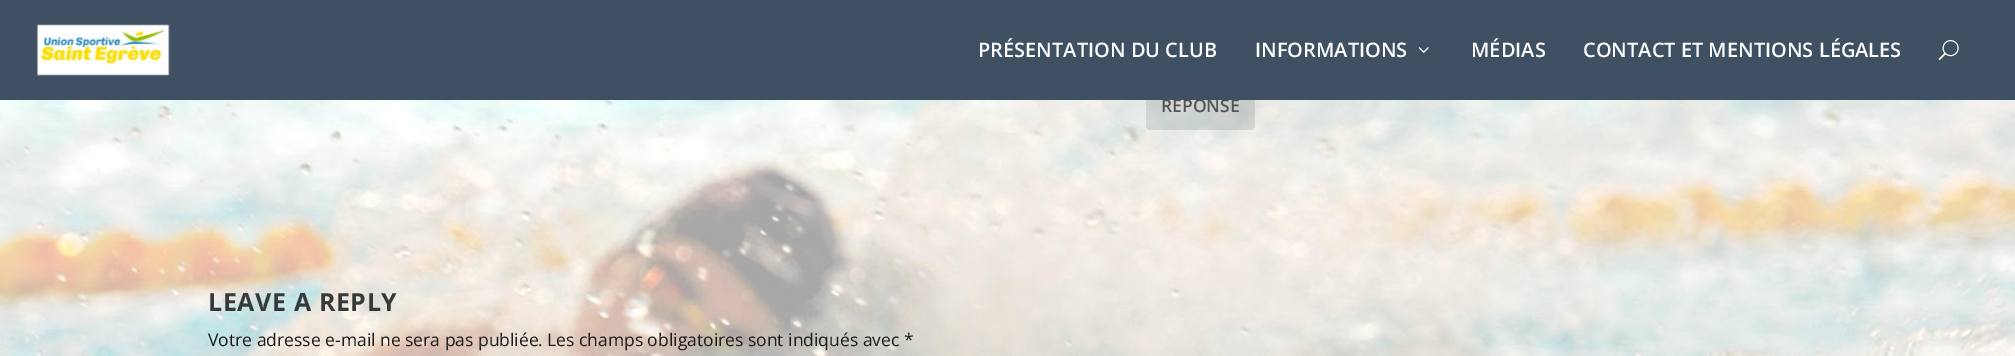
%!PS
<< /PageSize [2015 356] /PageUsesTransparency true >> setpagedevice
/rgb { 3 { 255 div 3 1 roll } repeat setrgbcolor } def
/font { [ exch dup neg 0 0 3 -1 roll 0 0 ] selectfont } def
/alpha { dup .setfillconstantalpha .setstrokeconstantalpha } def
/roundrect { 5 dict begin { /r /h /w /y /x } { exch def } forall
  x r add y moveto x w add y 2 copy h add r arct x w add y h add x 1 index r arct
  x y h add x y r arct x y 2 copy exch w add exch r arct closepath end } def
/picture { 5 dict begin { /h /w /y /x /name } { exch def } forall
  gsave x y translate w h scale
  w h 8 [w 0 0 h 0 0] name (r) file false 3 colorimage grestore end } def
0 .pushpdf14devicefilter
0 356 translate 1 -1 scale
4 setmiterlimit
255 255 255 rgb
0 0 2015 356 rectfill
(img/1.rgb) 0 100 2015 256 picture
0.1 alpha
0 0 0 rgb
1146 81 109 49 4 roundrect fill
/OpenSans-SemiBold 17.5 font
1 alpha
83 84 83 rgb
1161 112 moveto (RÉPONSE) show
62 80 98 rgb
0 0 2015 100 rectfill
(img/4.rgb) 1938 40 21 20 picture
/OpenSans-SemiBold 20 font
252 252 252 rgb
1583 57 moveto (CONTACT ET MENTIONS LÉGALES) show
1471 57 moveto (MÉDIAS) show
(img/3.rgb) 1418 47 11 6 picture
1255 57 moveto (INFORMATIONS) show
978 57 moveto (PRÉSENTATION DU CLUB) show
(img/2.rgb) 37 24 133 52 picture
/OpenSans-Bold 25 font
55 58 57 rgb
208 311 moveto 0.6 0 (LEAVE A REPLY) ashow
/OpenSans-Regular 17.5 font
27 26 25 rgb
[
  [(Votre adresse e-mail ne sera pas publiée.) 208 346]
  [(Les champs obligatoires sont indiqués avec) 547 346]
  [(*) 904 346]
] { aload pop moveto show } forall
.poppdf14devicefilter showpage
